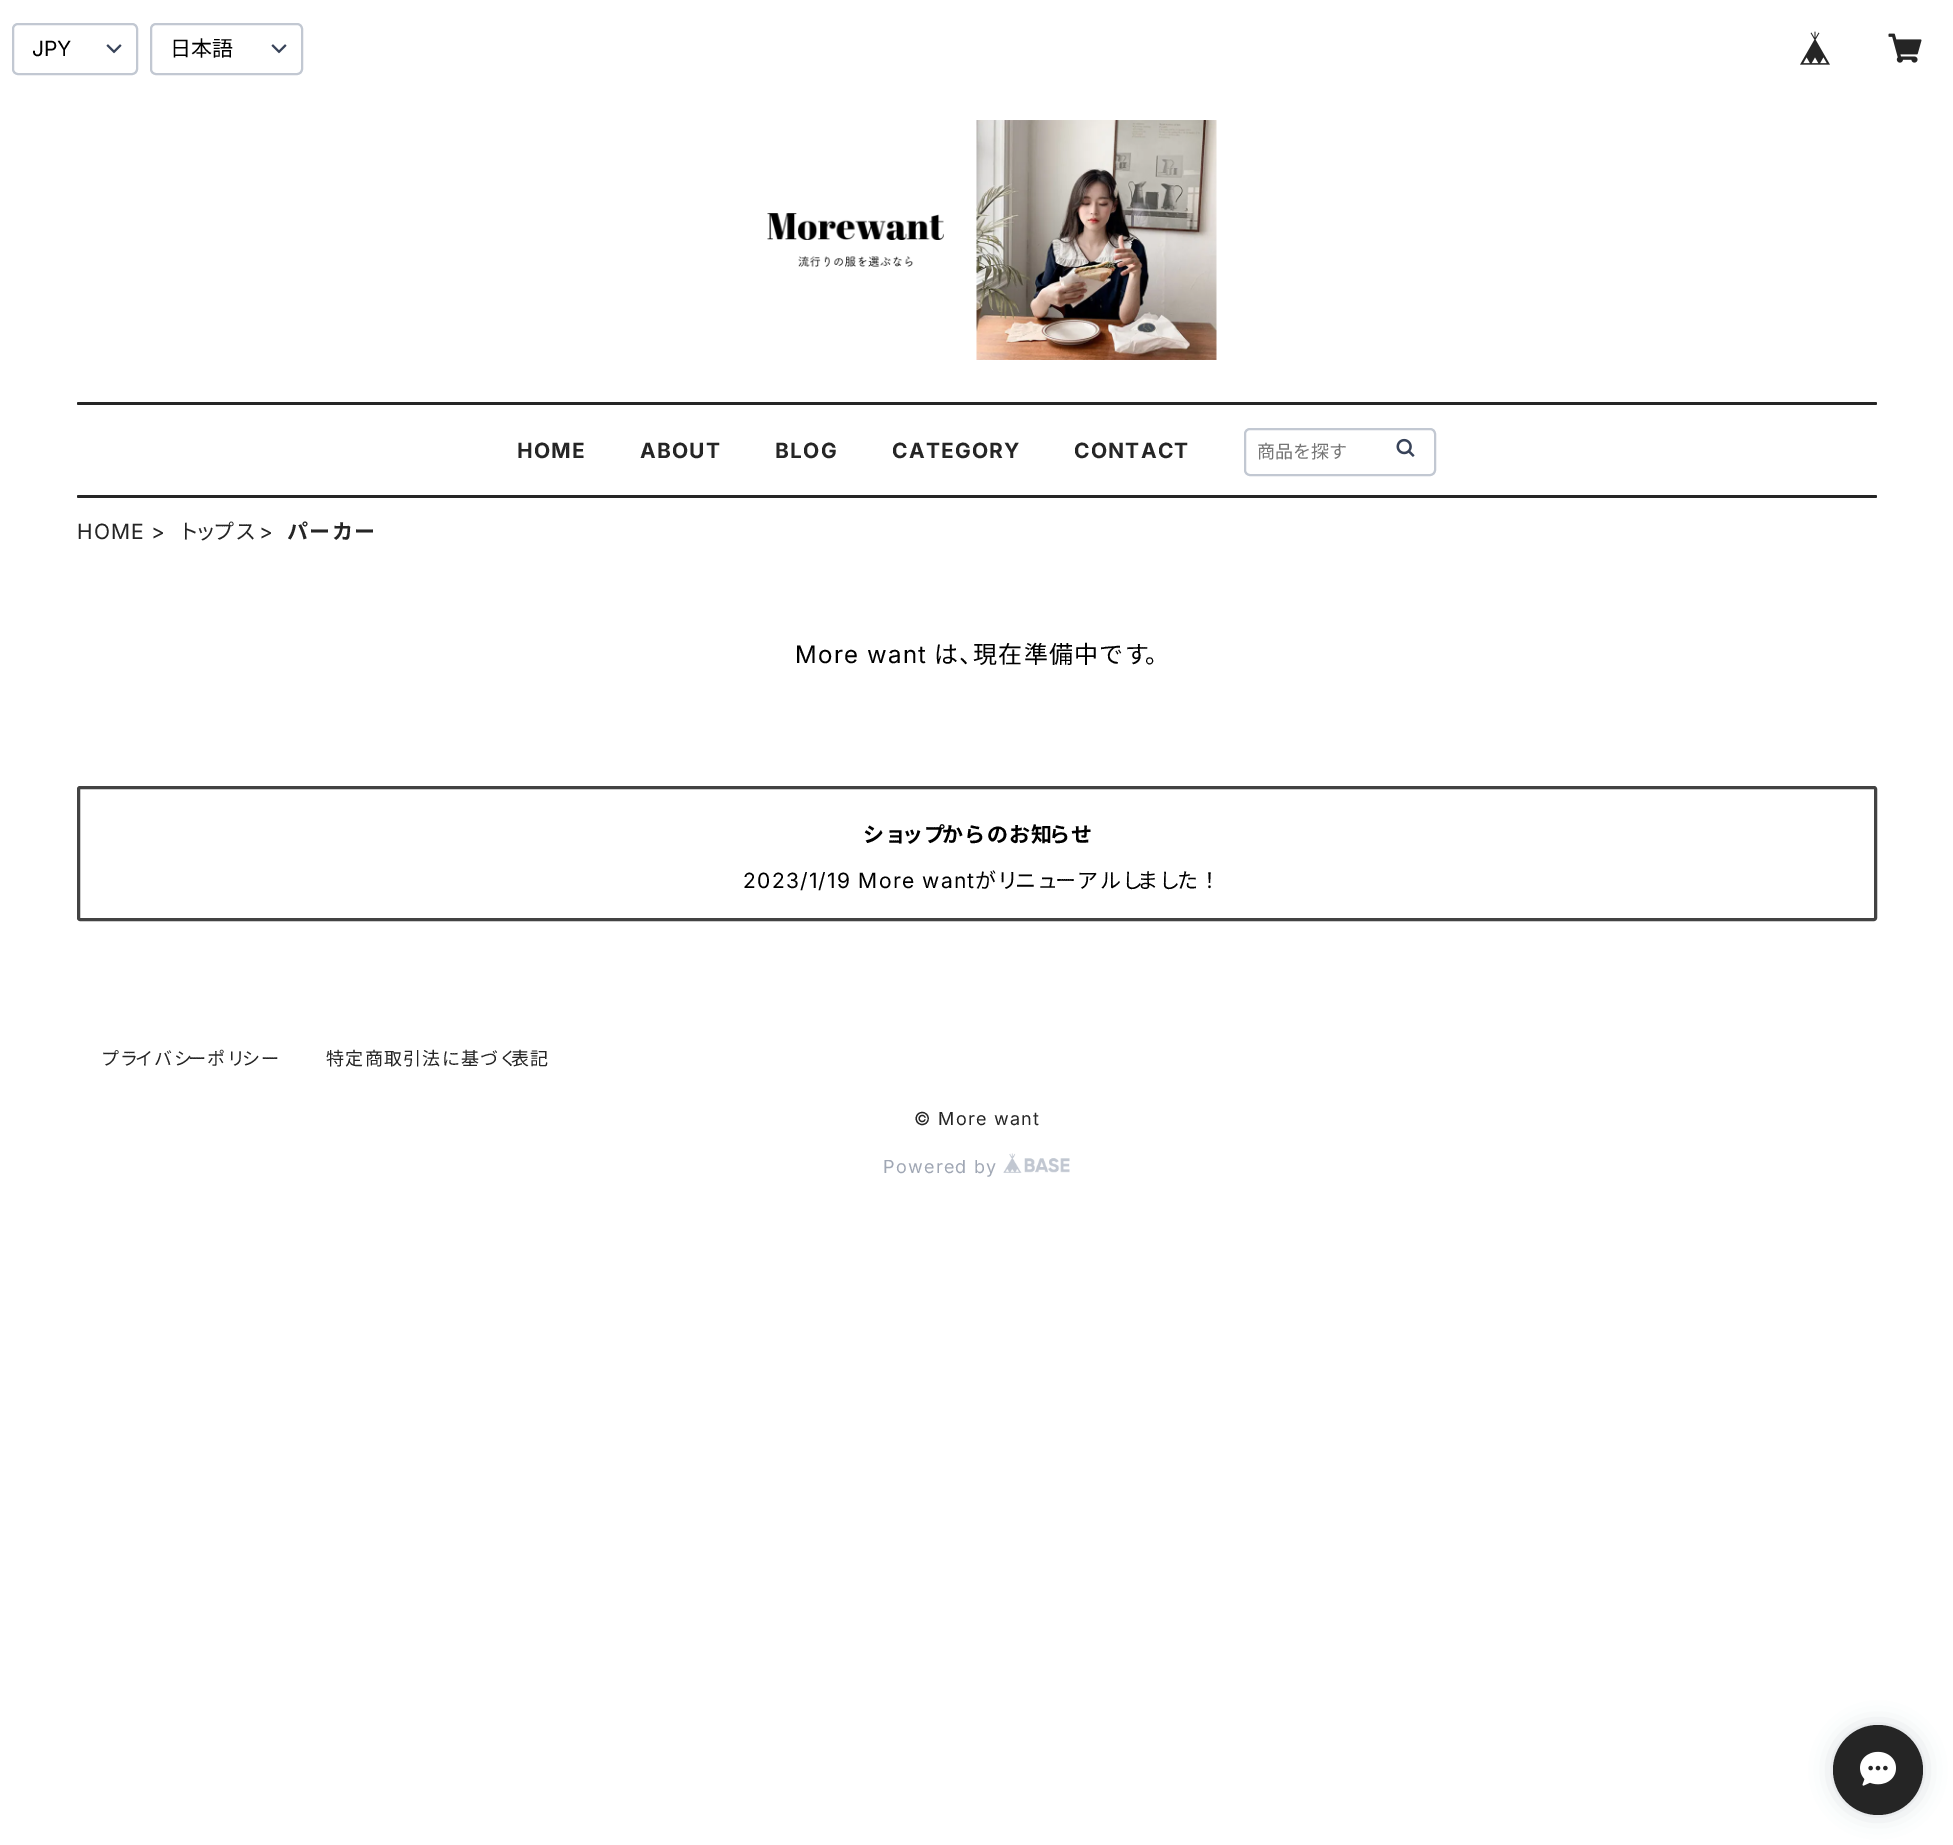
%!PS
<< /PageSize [1953 1845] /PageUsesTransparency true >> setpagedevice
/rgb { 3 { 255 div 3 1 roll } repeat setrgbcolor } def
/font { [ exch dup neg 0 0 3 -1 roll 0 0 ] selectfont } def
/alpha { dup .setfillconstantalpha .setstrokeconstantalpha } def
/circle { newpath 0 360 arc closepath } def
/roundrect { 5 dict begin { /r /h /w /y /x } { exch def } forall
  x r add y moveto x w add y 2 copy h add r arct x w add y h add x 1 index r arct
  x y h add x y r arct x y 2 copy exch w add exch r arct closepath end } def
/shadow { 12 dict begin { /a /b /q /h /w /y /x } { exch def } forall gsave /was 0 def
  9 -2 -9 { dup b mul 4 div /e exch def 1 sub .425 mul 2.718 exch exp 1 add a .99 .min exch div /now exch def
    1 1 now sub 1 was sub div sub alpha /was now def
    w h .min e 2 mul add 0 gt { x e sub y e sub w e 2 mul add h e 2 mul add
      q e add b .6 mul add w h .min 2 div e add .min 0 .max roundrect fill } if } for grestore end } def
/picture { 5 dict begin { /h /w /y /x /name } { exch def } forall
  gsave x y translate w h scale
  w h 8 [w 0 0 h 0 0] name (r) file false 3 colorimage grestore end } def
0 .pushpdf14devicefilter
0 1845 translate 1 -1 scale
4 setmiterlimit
255 255 255 rgb
0 0 1953 1845 rectfill
194 200 210 rgb
2 setlinewidth
13 24 124 50 5 roundrect stroke
(img/1.rgb) 106 44 16 10 picture
151 24 151 50 5 roundrect stroke
(img/1.rgb) 271 44 16 10 picture
(img/2.rgb) 1800 31 30 34 picture
(img/3.rgb) 1888 33 34 30 picture
(img/4.rgb) 767 120 450 240 picture
37 37 37 rgb
77 402 1800 3 1.5 roundrect fill
194 200 210 rgb
1245 429 190 46 5 roundrect stroke
(img/5.rgb) 1396 438 19 19 picture
37 37 37 rgb
77 495 1800 3 1.5 roundrect fill
67 67 67 rgb
3 setlinewidth
78.5 787.5 1797 132 1.5 roundrect stroke
(img/6.rgb) 1003 1153 67 20 picture
51 66 88 rgb
1833 1725 90 90 45 11 0.2 shadow
37 37 37 rgb
1878 1770 45 circle fill
(img/7.rgb) 1860 1751 36 35 picture
/Inter-Regular 21 font
0 0 0 rgb
32 56 moveto (JPY) show
/NotoSansJP-Regular 21 font
170 56 moveto (日本語) show
/Inter-Bold 21 font
37 37 37 rgb
517 458 moveto 1.25 0 (HOME) ashow
640 458 moveto 1.25 0 (ABOUT) ashow
775 458 moveto 1.25 0 (BLOG) ashow
892 458 moveto 1.25 0 (CATEGORY) ashow
1074 458 moveto 1.25 0 (CONTACT) ashow
/NotoSansJP-Regular 18 font
117 117 117 rgb
1257 458 moveto (商品を探す) show
/Inter-Regular 21 font
37 37 37 rgb
77 539 moveto 1.25 0 (HOME) ashow
151 539 moveto 1.25 0 (>) ashow
/NotoSansJP-Regular 21 font
178 539 moveto 1.25 0 (ト) ashow
195 539 moveto 1.25 0 (ッ) ashow
213 539 moveto 1.25 0 (プス) ashow
/Inter-Regular 21 font
259 539 moveto 1.25 0 (>) ashow
/NotoSansJP-Bold 21 font
287 539 moveto 1.25 0 (パーカー) ashow
/Inter-Regular 24 font
0 0 0 rgb
795 663 moveto 1.25 0 (More want) ashow
/NotoSansJP-Regular 24 font
934 663 moveto 1.25 0 (は、) ashow
973 663 moveto 1.25 0 (現在準備中です) ashow
1145 663 moveto 1.25 0 (。) ashow
/NotoSansJP-Bold 21 font
863 842 moveto 1.25 0 (ショ) ashow
902 842 moveto 1.25 0 (ップ) ashow
942 842 moveto 1.25 0 (からのお知) ashow
1049 842 moveto 1.25 0 (らせ) ashow
/Inter-Regular 21 font
743 888 moveto 1.25 0 (2023/1/19 More want) ashow
/NotoSansJP-Regular 21 font
975 888 moveto 1.25 0 (がリ) ashow
1015 888 moveto 1.25 0 (ニュ) ashow
1055 888 moveto 1.25 0 (ーアルし) ashow
1137 888 moveto 1.25 0 (まし) ashow
1177 888 moveto 1.25 0 (た！) ashow
/NotoSansJP-Regular 18 font
37 37 37 rgb
101 1065 moveto 1.25 0 (プラ) ashow
135 1065 moveto 1.25 0 (イバシ) ashow
188 1065 moveto 1.25 0 (ーポリ) ashow
242 1065 moveto 1.25 0 (シー) ashow
326 1065 moveto 1.25 0 (特定商取引法に基づく) ashow
511 1065 moveto 1.25 0 (表記) ashow
/Inter-Regular 18 font
914 1125 moveto 1.25 0 (© More want) ashow
160 167 180 rgb
883 1173 moveto 1.25 0 (Powered by) ashow
.poppdf14devicefilter showpage
